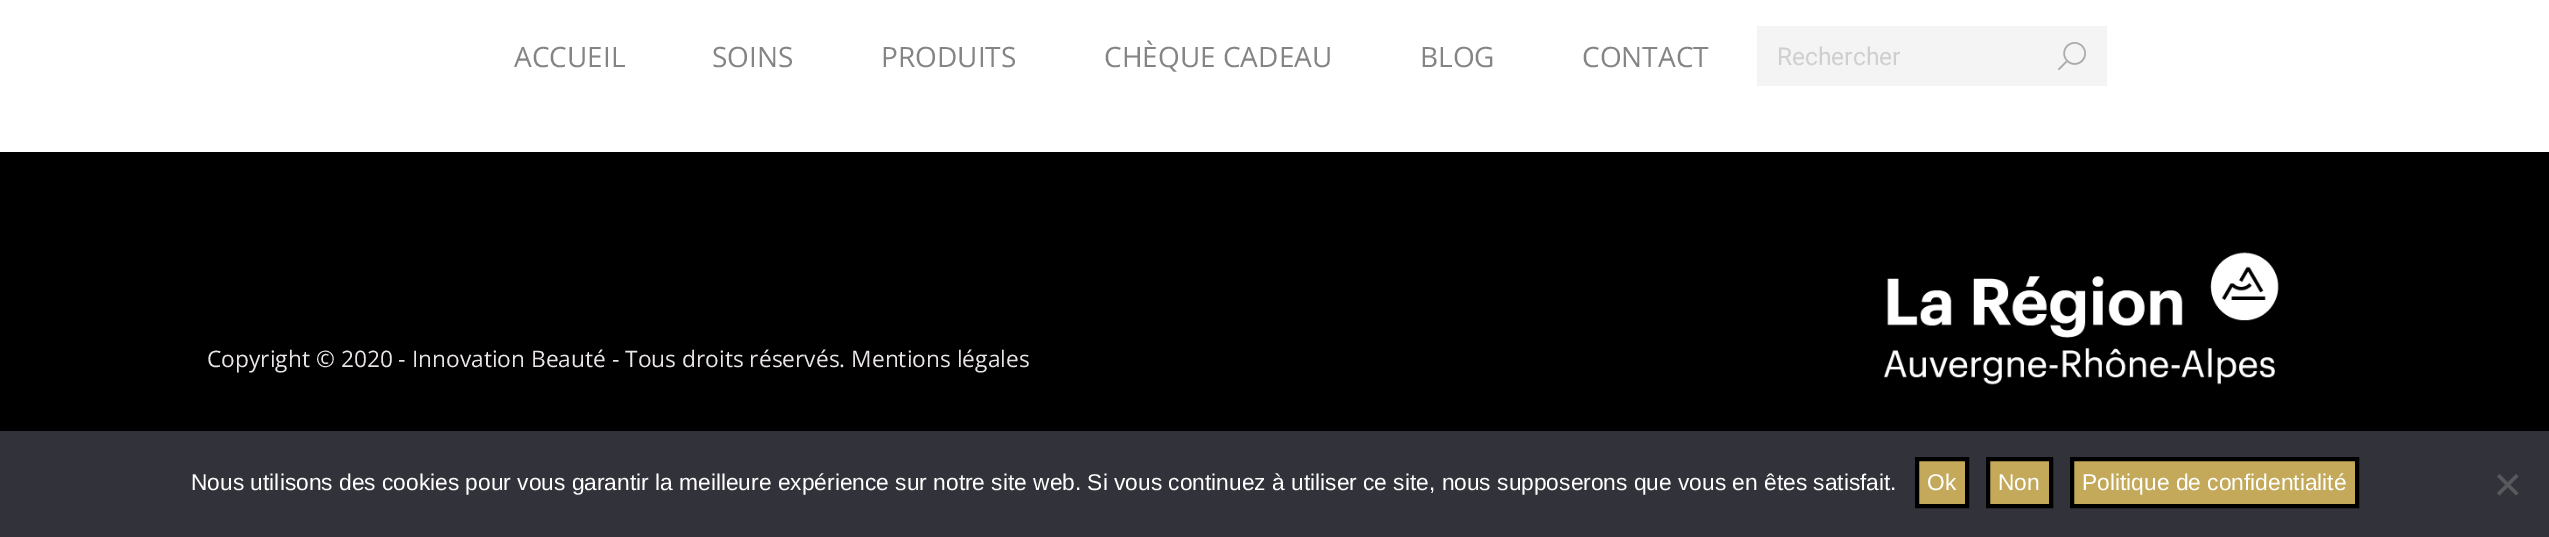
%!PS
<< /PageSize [2549 537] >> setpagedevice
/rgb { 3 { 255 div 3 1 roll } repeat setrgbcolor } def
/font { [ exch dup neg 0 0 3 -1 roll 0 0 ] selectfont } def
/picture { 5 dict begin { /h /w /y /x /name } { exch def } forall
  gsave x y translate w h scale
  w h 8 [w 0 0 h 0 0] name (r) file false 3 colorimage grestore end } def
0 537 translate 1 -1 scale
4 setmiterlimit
255 255 255 rgb
0 0 2549 537 rectfill
244 244 244 rgb
1757 26 350 60 rectfill
(img/1.rgb) 2058 42 28 28 picture
0 0 0 rgb
0 152 2549 279 rectfill
(img/2.rgb) 1883 252 396 133 picture
50 50 58 rgb
0 431 2549 106 rectfill
195 169 89 rgb
1917 459 moveto 1967 459 lineto 1967 506 lineto 1917 506 lineto closepath gsave fill grestore
0 0 0 rgb
4 setlinewidth
stroke
195 169 89 rgb
1988 459 moveto 2051 459 lineto 2051 506 lineto 1988 506 lineto closepath gsave fill grestore
0 0 0 rgb
stroke
195 169 89 rgb
2072 459 moveto 2357 459 lineto 2357 506 lineto 2072 506 lineto closepath gsave fill grestore
0 0 0 rgb
stroke
89 89 93 rgb
2516 474 moveto 2518.5 476.5 lineto 2499.5 495.5 lineto 2497 493 lineto closepath fill
2497 476.5 moveto 2499.5 474 lineto 2518.5 493 lineto 2516 495.5 lineto closepath fill
/OpenSans-Regular 28 font
132 132 132 rgb
[
  [(ACCUEIL) 514 67]
  [(SOINS) 712 67]
  [(PRODUITS) 881 67]
  [(CHÈQUE CADEAU) 1104 67]
  [(BLOG) 1420 67]
  [(CONTACT) 1582 67]
] { aload pop moveto show } forall
/Roboto-Regular 24.5 font
207 207 207 rgb
1777 65 moveto (Rechercher) show
/OpenSans-Regular 22.75 font
234 229 229 rgb
207 367 moveto (Copyright © 2020 - Innovation Beauté - Tous droits réservés. Mentions légales) show
/LiberationSans-Regular 22.75 font
255 255 255 rgb
[
  [(Nous utilisons des cookies pour vous garantir la meilleure expérience sur notre site web. Si vous continuez à utiliser ce site, nous supposerons que vous en êtes satisfait.) 191 490]
  [(Ok) 1927 490]
  [(Non) 1998 490]
  [(Politique de confidentialité) 2082 490]
] { aload pop moveto show } forall
showpage
